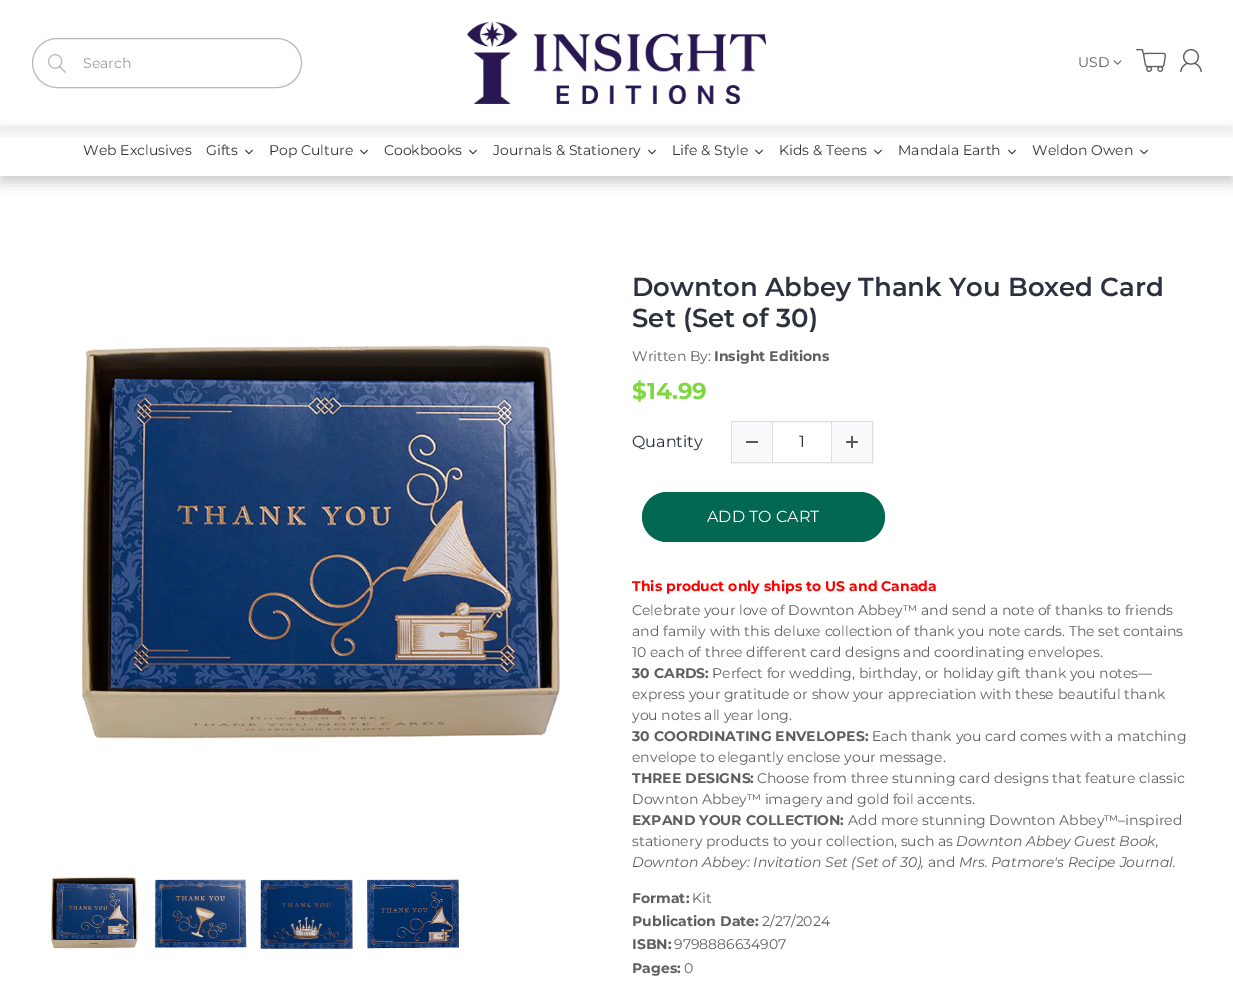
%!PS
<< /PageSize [1233 990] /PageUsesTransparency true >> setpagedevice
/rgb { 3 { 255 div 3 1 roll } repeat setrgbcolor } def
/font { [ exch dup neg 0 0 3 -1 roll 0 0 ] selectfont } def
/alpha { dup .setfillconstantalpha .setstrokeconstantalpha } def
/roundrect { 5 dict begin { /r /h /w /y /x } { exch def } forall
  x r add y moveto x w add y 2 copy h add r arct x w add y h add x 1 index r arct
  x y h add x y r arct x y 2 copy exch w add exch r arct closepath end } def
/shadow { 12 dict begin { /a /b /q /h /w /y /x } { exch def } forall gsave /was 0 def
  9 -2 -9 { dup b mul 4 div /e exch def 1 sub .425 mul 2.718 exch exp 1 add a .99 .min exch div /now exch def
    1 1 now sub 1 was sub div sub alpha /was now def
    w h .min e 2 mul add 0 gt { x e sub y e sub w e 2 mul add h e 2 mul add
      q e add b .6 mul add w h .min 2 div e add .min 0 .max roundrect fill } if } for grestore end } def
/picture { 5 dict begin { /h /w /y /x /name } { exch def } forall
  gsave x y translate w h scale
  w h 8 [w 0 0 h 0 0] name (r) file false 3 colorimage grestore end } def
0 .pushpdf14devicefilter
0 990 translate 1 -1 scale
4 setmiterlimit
255 255 255 rgb
0 0 1233 990 rectfill
gsave
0 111 moveto 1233 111 lineto 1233 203 lineto 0 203 lineto closepath 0 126 moveto 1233 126 lineto 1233 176 lineto 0 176 lineto closepath eoclip newpath
0 0 0 rgb
0 132 1233 50 0 6.5 0.2 shadow
grestore
(img/6.rgb) 245 149 8 6 picture
(img/6.rgb) 360 149 8 6 picture
(img/6.rgb) 469 149 8 6 picture
(img/6.rgb) 648 149 8 6 picture
(img/6.rgb) 755 149 8 6 picture
(img/6.rgb) 874 149 8 6 picture
(img/6.rgb) 1008 149 8 6 picture
(img/6.rgb) 1140 149 8 6 picture
gsave
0 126 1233 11 rectclip
0 0 0 rgb
0 6 1233 126 0 6.5 0.09 shadow
grestore
184 184 184 rgb
32.5 38.5 269 49 24.5 roundrect stroke
(img/1.rgb) 48 54 18 19 picture
(img/2.rgb) 467 22 299 82 picture
(img/3.rgb) 1113 60 9 5 picture
(img/4.rgb) 1136 49 30 23 picture
(img/5.rgb) 1180 49 22 23 picture
(img/7.rgb) 81 345 481 395 picture
(img/8.rgb) 51 877 87 72 picture
(img/9.rgb) 154 879 93 69 picture
(img/10.rgb) 260 879 93 70 picture
(img/11.rgb) 367 879 93 70 picture
221 220 220 rgb
772 422 1 40 rectfill
831 422 1 40 rectfill
731.5 421.5 141 41 rectstroke
250 250 252 rgb
732 422 40 40 rectfill
(img/12.rgb) 746 441 12 2 picture
832 422 40 40 rectfill
(img/13.rgb) 846 436 12 12 picture
2 104 81 rgb
642 492 243 50 25 roundrect fill
/Montserrat-Regular 14 font
153 153 153 rgb
83 68 moveto (Search) show
94 94 94 rgb
1078 67 moveto (USD) show
51 51 51 rgb
[
  [(Web Exclusives) 83 155]
  [(Gifts) 206 155]
  [(Pop Culture) 269 155]
  [(Cookbooks) 384 155]
  [(Journals & Stationery) 493 155]
  [(Life & Style) 672 155]
  [(Kids & Teens) 779 155]
  [(Mandala Earth) 898 155]
  [(Weldon Owen) 1032 155]
] { aload pop moveto show } forall
/Montserrat-SemiBold 26 font
45 49 63 rgb
632 296 moveto (Downton Abbey Thank You Boxed Card) show
632 327 moveto (Set \(Set of 30\)) show
/Montserrat-Regular 14 font
94 94 94 rgb
632 361 moveto (Written By:) show
/Montserrat-Bold 14 font
714 361 moveto (Insight Editions) show
/Montserrat-Bold 23 font
129 215 66 rgb
632 399 moveto ($14.99) show
/Montserrat-Regular 16 font
45 49 63 rgb
632 447 moveto (Quantity) show
51 51 51 rgb
799 447 moveto (1) show
255 255 255 rgb
707 522 moveto (ADD TO CART) show
/Montserrat-Bold 14 font
255 0 0 rgb
632 591 moveto (This product only ships to US and Canada) show
/Montserrat-Regular 14 font
94 94 94 rgb
[
  [(Celebrate your love of Downton Abbey™ and send a note of thanks to friends) 632 615]
  [(and family with this deluxe collection of thank you note cards. The set contains) 632 636]
  [(10 each of three different card designs and coordinating envelopes.) 632 657]
] { aload pop moveto show } forall
/Montserrat-Bold 14 font
632 678 moveto (30 CARDS:) show
/Montserrat-Regular 14 font
712 678 moveto (Perfect for wedding, birthday, or holiday gift thank you notes—) show
632 699 moveto (express your gratitude or show your appreciation with these beautiful thank) show
gsave
632 600 560 273 rectclip
632 720 moveto (you notes all year long.) show
grestore
/Montserrat-Bold 14 font
632 741 moveto (30 COORDINATING ENVELOPES:) show
/Montserrat-Regular 14 font
872 741 moveto (Each thank you card comes with a matching) show
632 762 moveto (envelope to elegantly enclose your message.) show
/Montserrat-Bold 14 font
632 783 moveto (THREE DESIGNS:) show
/Montserrat-Regular 14 font
757 783 moveto (Choose from three stunning card designs that feature classic) show
632 804 moveto (Downton Abbey™ imagery and gold foil accents.) show
/Montserrat-Bold 14 font
632 825 moveto (EXPAND YOUR COLLECTION:) show
/Montserrat-Regular 14 font
848 825 moveto (Add more stunning Downton Abbey™–inspired) show
632 846 moveto (stationery products to your collection, such as) show
/Montserrat-Italic 14 font
956 846 moveto (Downton Abbey Guest Book,) show
632 867 moveto (Downton Abbey: Invitation Set \(Set of 30\),) show
/Montserrat-Regular 14 font
928 867 moveto (and) show
/Montserrat-Italic 14 font
959 867 moveto (Mrs. Patmore's Recipe Journal.) show
/Montserrat-Bold 14 font
632 903 moveto (Format:) show
/Montserrat-Regular 14 font
692 903 moveto (Kit) show
/Montserrat-Bold 14 font
632 926 moveto (Publication Date:) show
/Montserrat-Regular 14 font
762 926 moveto (2/27/2024) show
/Montserrat-Bold 14 font
632 949 moveto (ISBN:) show
/Montserrat-Regular 14 font
674 949 moveto (9798886634907) show
/Montserrat-Bold 14 font
632 973 moveto (Pages:) show
/Montserrat-Regular 14 font
684 973 moveto (0) show
.poppdf14devicefilter showpage
